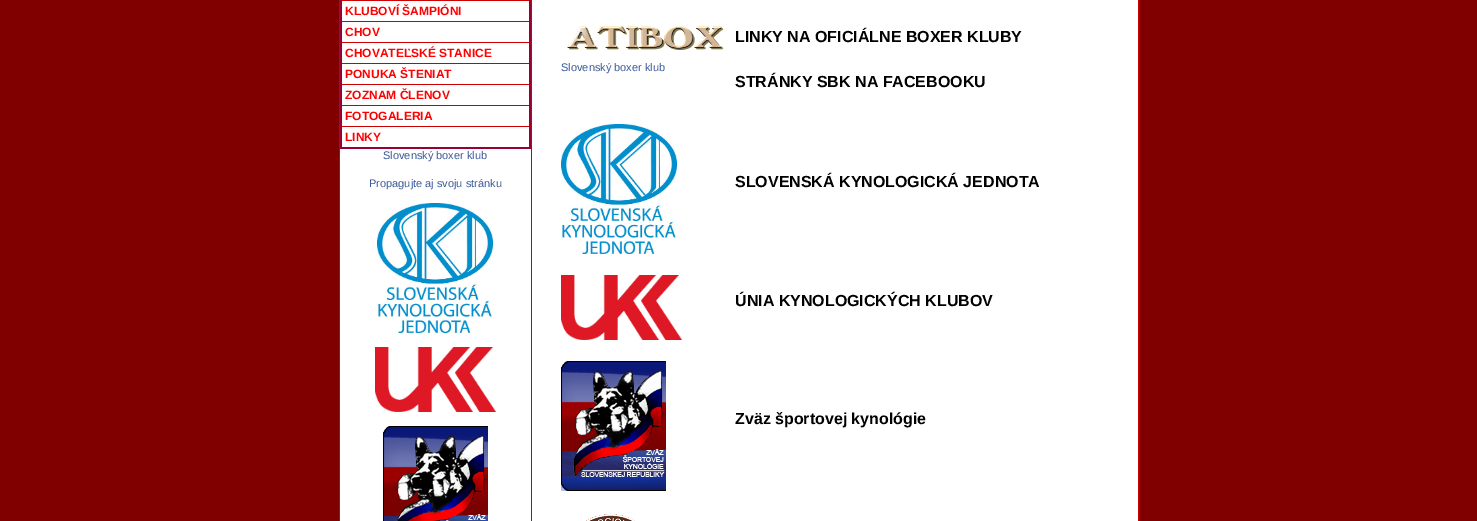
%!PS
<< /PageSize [1477 521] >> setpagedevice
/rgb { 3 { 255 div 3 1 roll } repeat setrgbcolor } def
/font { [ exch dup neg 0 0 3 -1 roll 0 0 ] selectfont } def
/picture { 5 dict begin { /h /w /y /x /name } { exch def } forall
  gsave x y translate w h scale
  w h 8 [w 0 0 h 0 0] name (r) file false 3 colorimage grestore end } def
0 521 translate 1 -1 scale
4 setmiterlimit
128 0 0 rgb
0 0 1477 521 rectfill
[
  [340 149 191 372 255 255 255]
  [339 0 1 521 204 0 0]
  [340 0 190 1 204 0 0]
  [340 21 190 1 204 0 0]
  [340 42 190 1 204 0 0]
  [340 63 190 1 204 0 0]
  [340 84 190 1 204 0 0]
  [340 105 190 1 204 0 0]
  [340 126 190 1 204 0 0]
  [529 0 2 149 153 0 51]
  [340 147 191 2 153 0 51]
  [340 0 2 149 153 0 51]
  [342 1 187 20 255 255 255]
  [342 22 187 20 255 255 255]
  [342 43 187 20 255 255 255]
  [342 64 187 20 255 255 255]
  [342 85 187 20 255 255 255]
  [342 106 187 20 255 255 255]
  [342 127 187 20 255 255 255]
] { aload pop rgb rectfill } forall
(img/1.rgb) 377 203 116 130 picture
(img/2.rgb) 375 347 121 65 picture
(img/3.rgb) 383 426 105 95 picture
[
  [532 0 606 521 255 255 255]
  [1138 0 1 521 204 0 0]
  [531 0 1 521 204 0 0]
] { aload pop rgb rectfill } forall
(img/4.rgb) 567 26 157 24 picture
(img/1.rgb) 561 124 116 130 picture
(img/5.rgb) 561 275 121 65 picture
(img/6.rgb) 561 361 105 130 picture
(img/7.rgb) 586 514 49 7 picture
/LiberationSans-Bold 12 font
255 0 0 rgb
[
  [(KLUBOVÍ ŠAMPIÓNI) 345 15]
  [(CHOV) 345 36]
  [(CHOVATEĽSKÉ STANICE) 345 57]
  [(PONUKA ŠTENIAT) 345 78]
  [(ZOZNAM ČLENOV) 345 99]
  [(FOTOGALERIA) 345 120]
  [(LINKY) 345 141]
] { aload pop moveto show } forall
/LiberationSans-Regular 11 font
59 89 152 rgb
383 159 moveto (Slovenský boxer klub) show
369 187 moveto (Propagujte aj svoju stránku) show
/LiberationSans-Bold 16 font
0 0 0 rgb
735 42 moveto (LINKY NA OFICIÁLNE BOXER KLUBY) show
/LiberationSans-Regular 11 font
59 89 152 rgb
561 71 moveto (Slovenský boxer klub) show
/LiberationSans-Bold 16 font
0 0 0 rgb
[
  [(STRÁNKY SBK NA FACEBOOKU) 735 87]
  [(SLOVENSKÁ KYNOLOGICKÁ JEDNOTA) 735 187]
  [(ÚNIA KYNOLOGICKÝCH KLUBOV) 735 306]
  [(Zväz športovej kynológie) 735 424]
] { aload pop moveto show } forall
showpage
